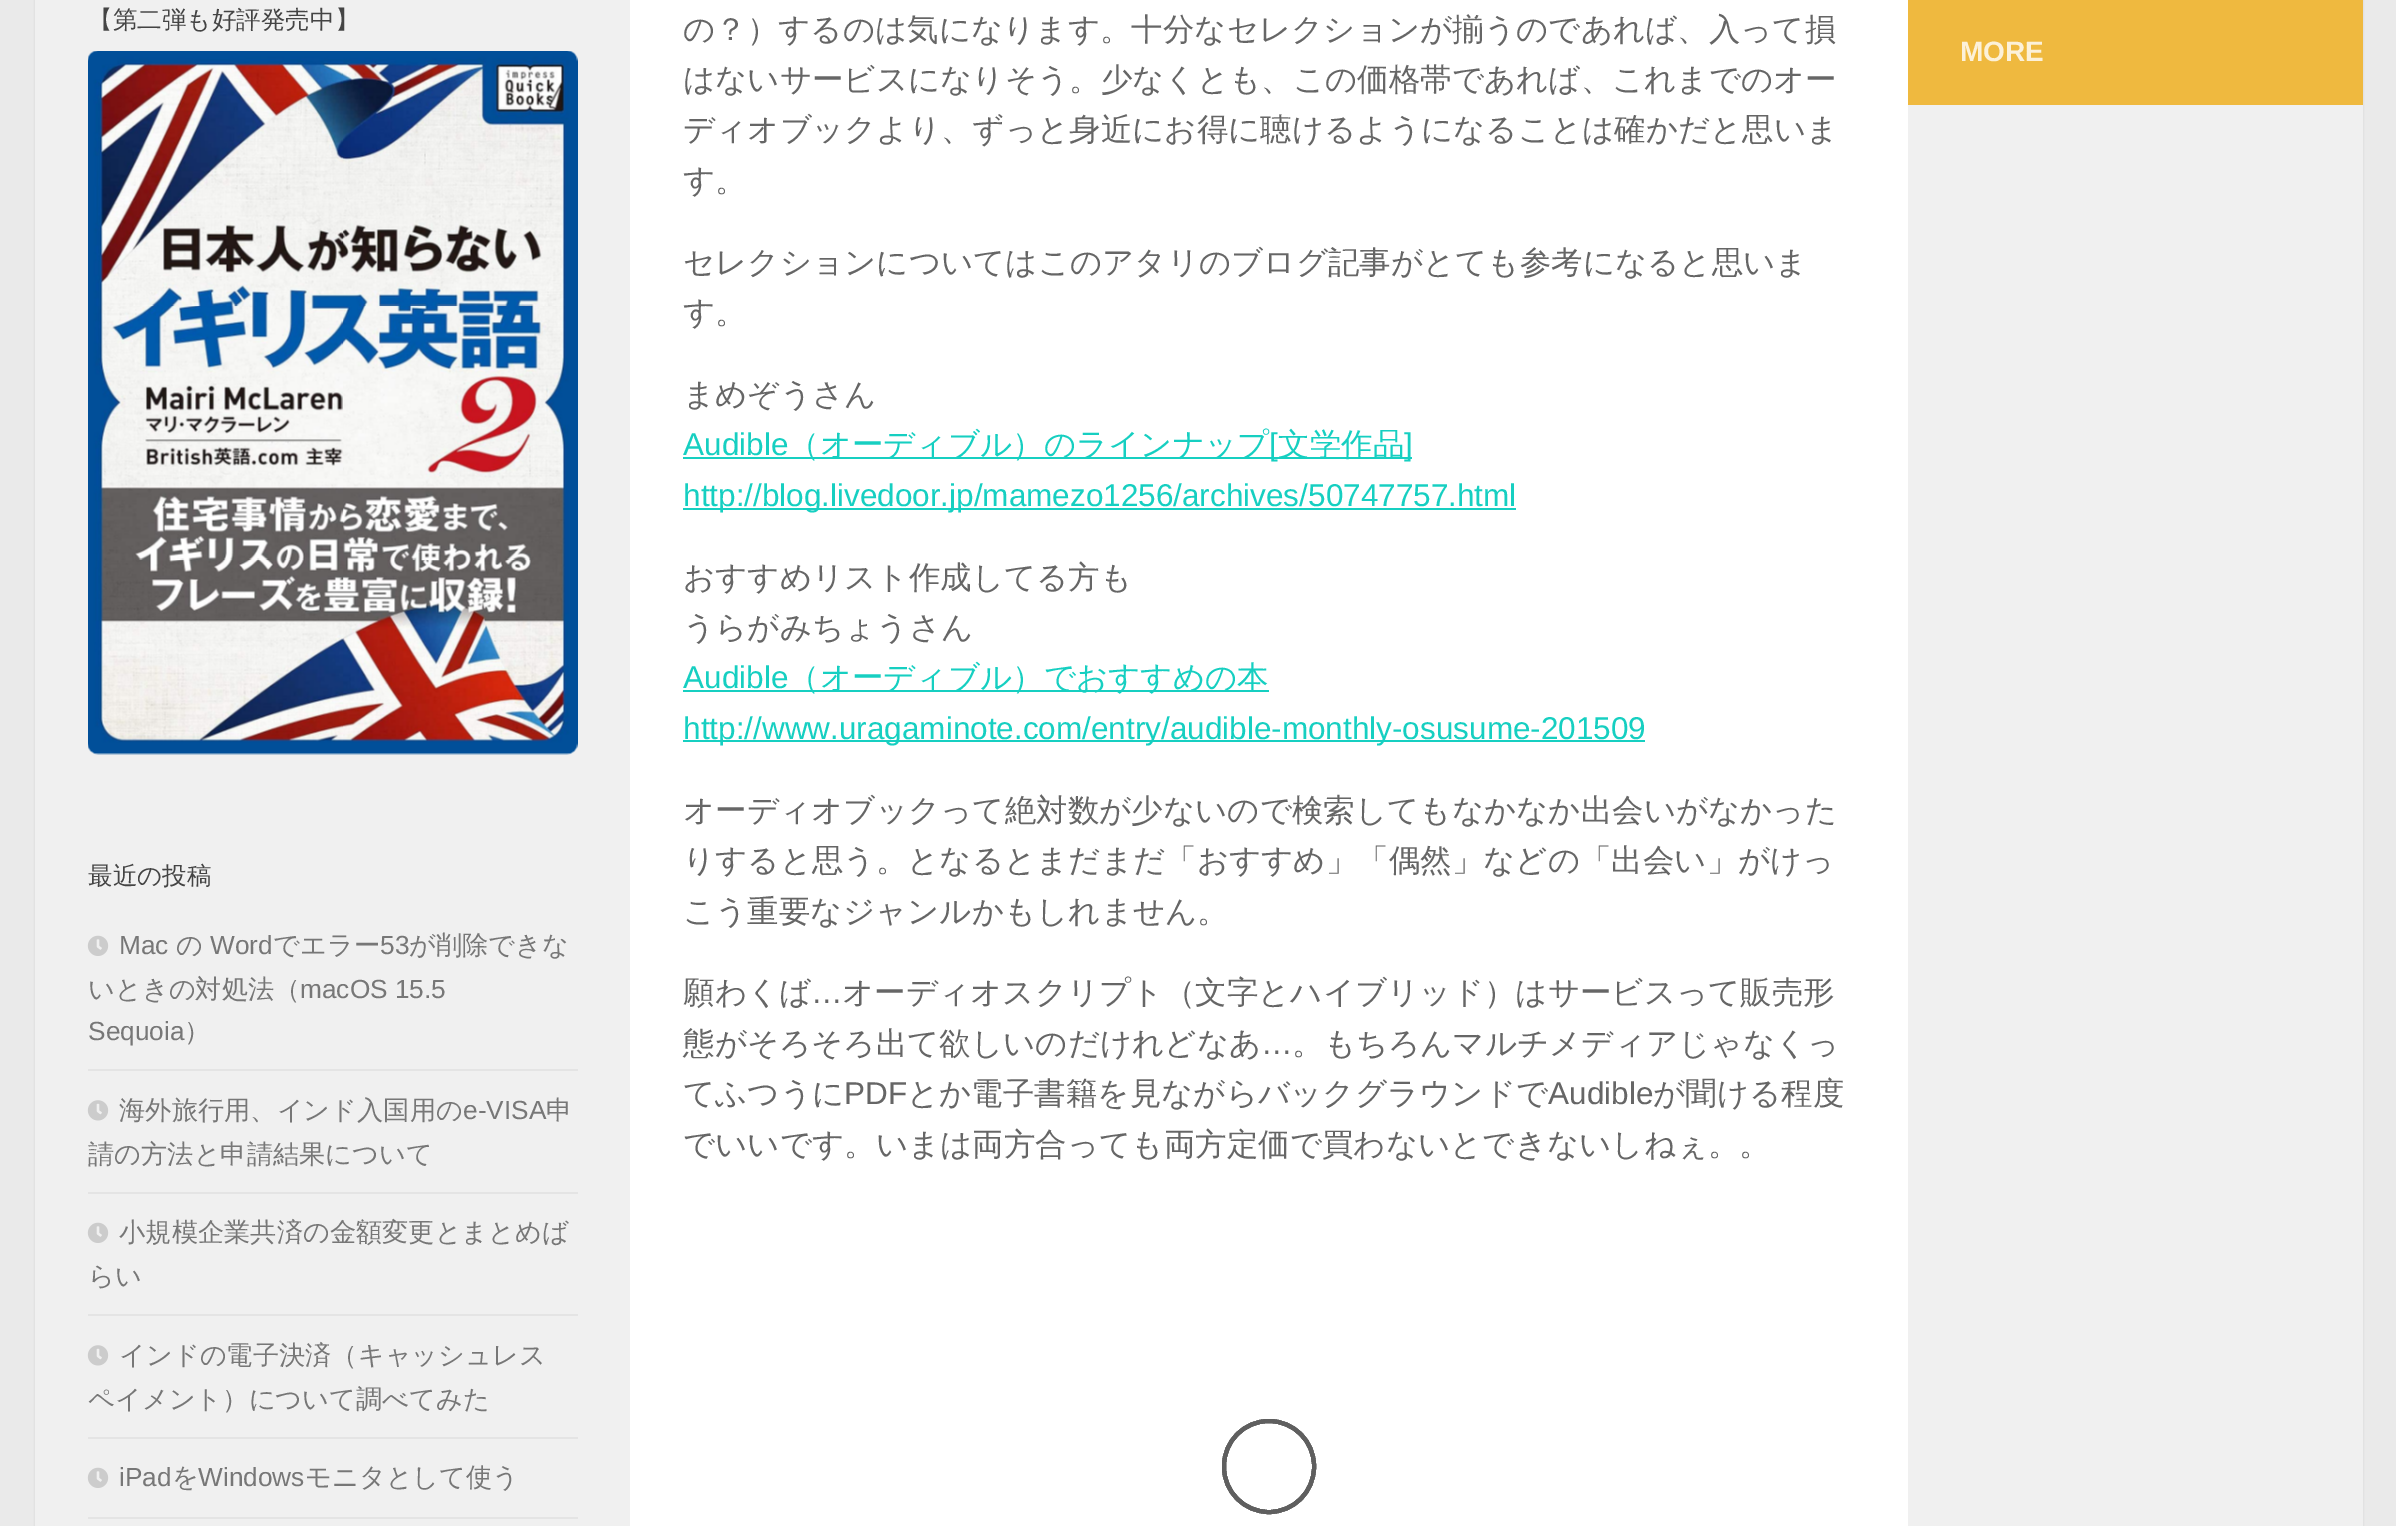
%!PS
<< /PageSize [2396 1526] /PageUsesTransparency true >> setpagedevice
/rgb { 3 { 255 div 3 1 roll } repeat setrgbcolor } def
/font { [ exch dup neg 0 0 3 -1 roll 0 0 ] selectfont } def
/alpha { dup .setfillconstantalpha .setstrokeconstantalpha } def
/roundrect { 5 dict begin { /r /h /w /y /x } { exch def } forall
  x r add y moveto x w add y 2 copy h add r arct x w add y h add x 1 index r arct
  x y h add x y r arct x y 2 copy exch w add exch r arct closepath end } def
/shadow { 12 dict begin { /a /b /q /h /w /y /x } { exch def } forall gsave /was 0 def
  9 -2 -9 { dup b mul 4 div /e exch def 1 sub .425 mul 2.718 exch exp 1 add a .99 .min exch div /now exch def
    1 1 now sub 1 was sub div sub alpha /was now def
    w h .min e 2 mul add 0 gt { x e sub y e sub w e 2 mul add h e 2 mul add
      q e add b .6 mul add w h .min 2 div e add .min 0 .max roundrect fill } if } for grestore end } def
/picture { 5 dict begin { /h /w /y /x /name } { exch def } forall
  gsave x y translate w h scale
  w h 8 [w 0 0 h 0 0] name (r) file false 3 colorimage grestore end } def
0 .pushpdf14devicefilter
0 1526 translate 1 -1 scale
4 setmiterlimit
234 234 234 rgb
0 0 2396 1526 rectfill
0 0 0 rgb
35 -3 2328 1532 0 1 0.1 shadow
255 255 255 rgb
630 0 1278 1526 rectfill
240 240 240 rgb
35 0 595 1526 rectfill
(img/1.rgb) 88 51 490 704 picture
228 228 228 rgb
88 1069 490 2 rectfill
(img/2.rgb) 87 935 22 21 picture
88 1192 490 2 rectfill
(img/3.rgb) 87 1100 22 21 picture
88 1314 490 2 rectfill
(img/2.rgb) 87 1222 22 21 picture
88 1437 490 2 rectfill
(img/3.rgb) 87 1345 22 21 picture
88 1517 490 2 rectfill
(img/2.rgb) 87 1467 22 21 picture
[
  [683 457 729 2 22 207 193]
  [683 508 833 2 22 207 193]
  [683 690 586 2 22 207 193]
  [683 740 962 2 22 207 193]
] { aload pop rgb rectfill } forall
95 95 95 rgb
4 setlinewidth
1224 1421 90 91 45 roundrect stroke
1224 1421 90 91 45 roundrect stroke
1224 1421 90 91 45 roundrect stroke
239 185 63 rgb
1908 0 455 105 rectfill
240 240 240 rgb
1908 105 455 1421 rectfill
/WenQuanYiZenHei-Medium 24.6 font
68 68 68 rgb
88 28 moveto (【第二弾も好評発売中】) show
88 884 moveto (最近の投稿) show
/LiberationSans-Regular 26.25 font
119 119 119 rgb
119 954 moveto (Mac) show
/WenQuanYiZenHei-Medium 26.25 font
176 954 moveto (の) show
/LiberationSans-Regular 26.25 font
210 954 moveto (Word) show
/WenQuanYiZenHei-Medium 26.25 font
273 954 moveto (でエラー) show
/LiberationSans-Regular 26.25 font
380 954 moveto (53) show
/WenQuanYiZenHei-Medium 26.25 font
409 954 moveto (が削除できな) show
88 998 moveto (いときの対処法（) show
/LiberationSans-Regular 26.25 font
300 998 moveto (macOS 15.5) show
88 1040 moveto (Sequoia) show
/WenQuanYiZenHei-Medium 26.25 font
184 1040 moveto (）) show
119 1119 moveto (海外旅行用、インド入国用の) show
/LiberationSans-Regular 26.25 font
463 1119 moveto (e-VISA) show
/WenQuanYiZenHei-Medium 26.25 font
[
  [(申) 546 1119]
  [(請の方法と申請結果について) 88 1163]
  [(小規模企業共済の金額変更とまとめば) 119 1241]
  [(らい) 88 1285]
  [(インドの電子決済（キャッシュレス) 119 1364]
  [(ペイメント）について調べてみた) 88 1408]
] { aload pop moveto show } forall
/LiberationSans-Regular 26.25 font
119 1486 moveto (iPad) show
/WenQuanYiZenHei-Medium 26.25 font
172 1486 moveto (を) show
/LiberationSans-Regular 26.25 font
198 1486 moveto (Windows) show
/WenQuanYiZenHei-Medium 26.25 font
305 1486 moveto (モニタとして使う) show
/WenQuanYiZenHei-Medium 31.5 font
102 102 102 rgb
[
  [(の？）するのは気になります。十分なセレクションが揃うのであれば、入って損) 683 40]
  [(はないサービスになりそう。少なくとも、この価格帯であれば、これまでのオー) 683 90]
  [(ディオブックより、ずっと身近にお得に聴けるようになることは確かだと思いま) 683 140]
  [(す。) 683 191]
  [(セレクションについてはこのアタリのブログ記事がとても参考になると思いま) 683 273]
  [(す。) 683 323]
  [(まめぞうさん) 683 405]
] { aload pop moveto show } forall
/LiberationSans-Regular 31.5 font
22 207 193 rgb
683 455 moveto (Audible) show
/WenQuanYiZenHei-Medium 31.5 font
788 455 moveto (（オーディブル）のラインナップ) show
/LiberationSans-Regular 31.5 font
1269 455 moveto ([) show
/WenQuanYiZenHei-Medium 31.5 font
1278 455 moveto (文学作品) show
/LiberationSans-Regular 31.5 font
1404 455 moveto (]) show
683 506 moveto (http://blog.livedoor.jp/mamezo1256/archives/50747757.html) show
/WenQuanYiZenHei-Medium 31.5 font
102 102 102 rgb
683 588 moveto (おすすめリスト作成してる方も) show
683 638 moveto (うらがみちょうさん) show
/LiberationSans-Regular 31.5 font
22 207 193 rgb
683 688 moveto (Audible) show
/WenQuanYiZenHei-Medium 31.5 font
788 688 moveto (（オーディブル）でおすすめの本) show
/LiberationSans-Regular 31.5 font
683 739 moveto (http://www.uragaminote.com/entry/audible-monthly-osusume-201509) show
/WenQuanYiZenHei-Medium 31.5 font
102 102 102 rgb
[
  [(オーディオブックって絶対数が少ないので検索してもなかなか出会いがなかった) 683 821]
  [(りすると思う。となるとまだまだ「おすすめ」「偶然」などの「出会い」がけっ) 683 871]
  [(こう重要なジャンルかもしれません。) 683 922]
  [(願わくば) 683 1003]
] { aload pop moveto show } forall
/LiberationSans-Regular 31.5 font
811 1003 moveto (…) show
/WenQuanYiZenHei-Medium 31.5 font
842 1003 moveto (オーディオスクリプト（文字とハイブリッド）はサービスって販売形) show
683 1054 moveto (態がそろそろ出て欲しいのだけれどなあ) show
/LiberationSans-Regular 31.5 font
1261 1054 moveto (…) show
/WenQuanYiZenHei-Medium 31.5 font
1292 1054 moveto (。もちろんマルチメディアじゃなくっ) show
683 1104 moveto (てふつうに) show
/LiberationSans-Regular 31.5 font
844 1104 moveto (PDF) show
/WenQuanYiZenHei-Medium 31.5 font
907 1104 moveto (とか電子書籍を見ながらバックグラウンドで) show
/LiberationSans-Regular 31.5 font
1548 1104 moveto (Audible) show
/WenQuanYiZenHei-Medium 31.5 font
1653 1104 moveto (が聞ける程度) show
683 1155 moveto (でいいです。いまは両方合っても両方定価で買わないとできないしねぇ。。) show
/LiberationSans-Bold 28 font
252 241 217 rgb
1960 61 moveto (MORE) show
.poppdf14devicefilter showpage
